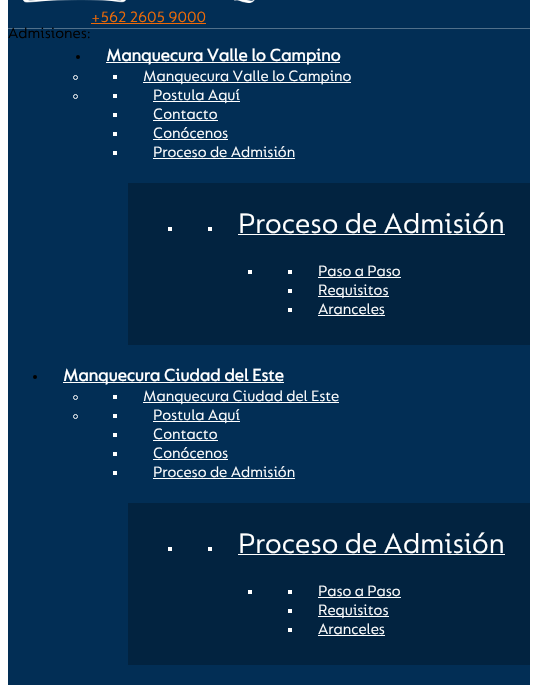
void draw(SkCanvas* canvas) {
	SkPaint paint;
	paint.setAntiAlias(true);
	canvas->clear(0xffffffff);
	paint.setColor(0xff022e55);
	canvas->drawRect(SkRect::MakeXYWH(8, 0, 522, 685), paint);
	paint.setColor(0xff51708a);
	canvas->drawRect(SkRect::MakeXYWH(8, 28, 522, 1), paint);
	canvas->drawImageRect(SkImages::DeferredFromEncodedData(SkData::MakeFromFileName("img1.png")), SkRect::MakeXYWH(23, 0, 232, 3), SkSamplingOptions());
	SkFont f1(fontMgr->matchFamilyStyle("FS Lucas", SkFontStyle::Normal()), 16);
	f1.setSubpixel(true);
	paint.setColor(0xffed6a08);
	canvas->drawString("+562 2605 9000", 91, 22, f1, paint);
	canvas->drawRect(SkRect::MakeXYWH(91, 23, 115, 1), paint);
	paint.setColor(0xff000000);
	canvas->drawString("Admisiones:", 8, 38, f1, paint);
	canvas->drawCircle(78, 57, 2, paint);
	paint.setColor(0xffffffff);
	canvas->drawRect(SkRect::MakeXYWH(106, 62, 234, 1), paint);
	SkFont f2(fontMgr->matchFamilyStyle("FS Lucas", SkFontStyle::Bold()), 18);
	f2.setSubpixel(true);
	canvas->drawString("Manquecura Valle lo Campino", 106, 61, f2, paint);
	paint.setStroke(true);
	paint.setStrokeWidth(1);
	canvas->drawCircle(75.5, 77.5, 2, paint);
	paint.setStroke(false);
	canvas->drawRect(SkRect::MakeXYWH(113, 75, 4, 4), paint);
	canvas->drawRect(SkRect::MakeXYWH(143, 82, 208, 1), paint);
	canvas->drawString("Manquecura Valle lo Campino", 143, 81, f1, paint);
	paint.setStroke(true);
	canvas->drawCircle(75.5, 96.5, 2, paint);
	paint.setStroke(false);
	canvas->drawRect(SkRect::MakeXYWH(113, 94, 4, 4), paint);
	canvas->drawRect(SkRect::MakeXYWH(153, 101, 87, 1), paint);
	canvas->drawString("Postula Aquí", 153, 100, f1, paint);
	canvas->drawRect(SkRect::MakeXYWH(113, 113, 4, 4), paint);
	canvas->drawString("Contacto", 153, 119, f1, paint);
	canvas->drawRect(SkRect::MakeXYWH(153, 120, 65, 1), paint);
	canvas->drawRect(SkRect::MakeXYWH(113, 132, 4, 4), paint);
	canvas->drawString("Conócenos", 153, 138, f1, paint);
	canvas->drawRect(SkRect::MakeXYWH(153, 139, 75, 1), paint);
	canvas->drawRect(SkRect::MakeXYWH(113, 151, 4, 4), paint);
	canvas->drawString("Proceso de Admisión", 153, 157, f1, paint);
	canvas->drawRect(SkRect::MakeXYWH(153, 158, 142, 1), paint);
	paint.setColor(0xff022340);
	canvas->drawRect(SkRect::MakeXYWH(128, 183, 402, 162), paint);
	paint.setColor(0xffffffff);
	canvas->drawRect(SkRect::MakeXYWH(168, 227, 4, 4), paint);
	canvas->drawRect(SkRect::MakeXYWH(208, 227, 4, 4), paint);
	SkFont f3(fontMgr->matchFamilyStyle("FS Lucas", SkFontStyle::Normal()), 30);
	f3.setSubpixel(true);
	canvas->drawString("Proceso de Admisión", 238, 233, f3, paint);
	canvas->drawRect(SkRect::MakeXYWH(238, 234, 267, 1), paint);
	canvas->drawRect(SkRect::MakeXYWH(248, 270, 4, 4), paint);
	canvas->drawRect(SkRect::MakeXYWH(288, 270, 4, 4), paint);
	canvas->drawString("Paso a Paso", 318, 276, f1, paint);
	canvas->drawRect(SkRect::MakeXYWH(318, 277, 83, 1), paint);
	canvas->drawRect(SkRect::MakeXYWH(288, 289, 4, 4), paint);
	canvas->drawRect(SkRect::MakeXYWH(318, 296, 71, 1), paint);
	canvas->drawString("Requisitos", 318, 295, f1, paint);
	canvas->drawRect(SkRect::MakeXYWH(288, 308, 4, 4), paint);
	canvas->drawString("Aranceles", 318, 314, f1, paint);
	canvas->drawRect(SkRect::MakeXYWH(318, 315, 67, 1), paint);
	paint.setColor(0xff000000);
	canvas->drawCircle(35, 377, 2, paint);
	paint.setColor(0xffffffff);
	canvas->drawRect(SkRect::MakeXYWH(63, 382, 221, 1), paint);
	canvas->drawString("Manquecura Ciudad del Este", 63, 381, f2, paint);
	paint.setStroke(true);
	canvas->drawCircle(75.5, 397.5, 2, paint);
	paint.setStroke(false);
	canvas->drawRect(SkRect::MakeXYWH(113, 395, 4, 4), paint);
	canvas->drawRect(SkRect::MakeXYWH(143, 402, 196, 1), paint);
	canvas->drawString("Manquecura Ciudad del Este", 143, 401, f1, paint);
	paint.setStroke(true);
	canvas->drawCircle(75.5, 416.5, 2, paint);
	paint.setStroke(false);
	canvas->drawRect(SkRect::MakeXYWH(113, 414, 4, 4), paint);
	canvas->drawRect(SkRect::MakeXYWH(153, 421, 87, 1), paint);
	canvas->drawString("Postula Aquí", 153, 420, f1, paint);
	canvas->drawRect(SkRect::MakeXYWH(113, 433, 4, 4), paint);
	canvas->drawString("Contacto", 153, 439, f1, paint);
	canvas->drawRect(SkRect::MakeXYWH(153, 440, 65, 1), paint);
	canvas->drawRect(SkRect::MakeXYWH(113, 452, 4, 4), paint);
	canvas->drawString("Conócenos", 153, 458, f1, paint);
	canvas->drawRect(SkRect::MakeXYWH(153, 459, 75, 1), paint);
	canvas->drawRect(SkRect::MakeXYWH(113, 471, 4, 4), paint);
	canvas->drawString("Proceso de Admisión", 153, 477, f1, paint);
	canvas->drawRect(SkRect::MakeXYWH(153, 478, 142, 1), paint);
	paint.setColor(0xff022340);
	canvas->drawRect(SkRect::MakeXYWH(128, 503, 402, 162), paint);
	paint.setColor(0xffffffff);
	canvas->drawRect(SkRect::MakeXYWH(168, 547, 4, 4), paint);
	canvas->drawRect(SkRect::MakeXYWH(208, 547, 4, 4), paint);
	canvas->drawString("Proceso de Admisión", 238, 553, f3, paint);
	canvas->drawRect(SkRect::MakeXYWH(238, 554, 267, 1), paint);
	canvas->drawRect(SkRect::MakeXYWH(248, 590, 4, 4), paint);
	canvas->drawRect(SkRect::MakeXYWH(288, 590, 4, 4), paint);
	canvas->drawString("Paso a Paso", 318, 596, f1, paint);
	canvas->drawRect(SkRect::MakeXYWH(318, 597, 83, 1), paint);
	canvas->drawRect(SkRect::MakeXYWH(288, 609, 4, 4), paint);
	canvas->drawRect(SkRect::MakeXYWH(318, 616, 71, 1), paint);
	canvas->drawString("Requisitos", 318, 615, f1, paint);
	canvas->drawRect(SkRect::MakeXYWH(288, 628, 4, 4), paint);
	canvas->drawString("Aranceles", 318, 634, f1, paint);
	canvas->drawRect(SkRect::MakeXYWH(318, 635, 67, 1), paint);
}
